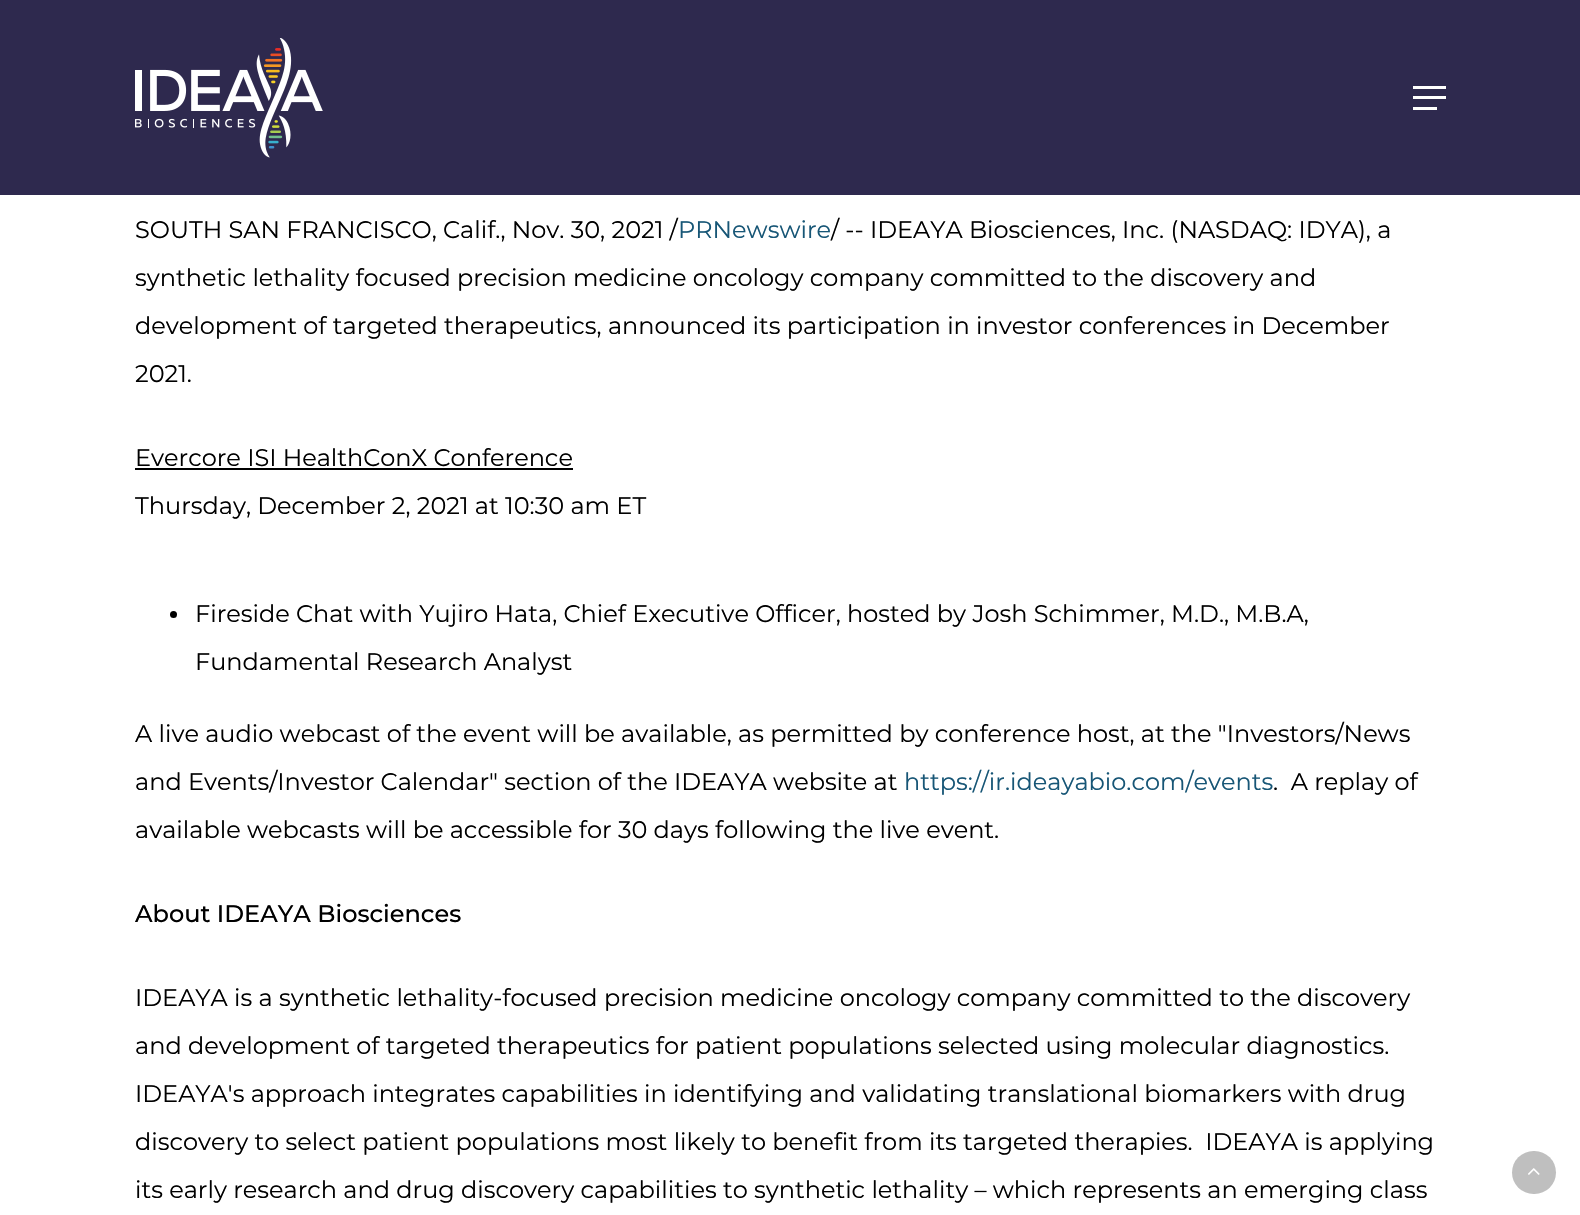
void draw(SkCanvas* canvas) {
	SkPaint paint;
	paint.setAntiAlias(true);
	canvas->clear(0xffffffff);
	paint.setColor(0xff2e294e);
	canvas->drawRect(SkRect::MakeXYWH(0, 0, 1580, 195), paint);
	canvas->drawImageRect(SkImages::DeferredFromEncodedData(SkData::MakeFromFileName("img1.png")), SkRect::MakeXYWH(135, 38, 188, 120), SkSamplingOptions());
	paint.setColor(0xffffffff);
	canvas->drawRect(SkRect::MakeXYWH(1413, 86, 33, 3), paint);
	canvas->drawRect(SkRect::MakeXYWH(1413, 107, 24, 3), paint);
	canvas->drawRect(SkRect::MakeXYWH(1413, 96, 33, 3), paint);
	SkFont f1(fontMgr->matchFamilyStyle("Montserrat", SkFontStyle::Normal()), 24);
	f1.setSubpixel(true);
	paint.setColor(0xff000000);
	canvas->drawString("SOUTH SAN FRANCISCO, Calif., Nov. 30, 2021 /", 135, 238, f1, paint);
	paint.setColor(0xff175676);
	canvas->drawString("PRNewswire", 678, 238, f1, paint);
	paint.setColor(0xff000000);
	canvas->drawString("/ -- IDEAYA Biosciences, Inc. (NASDAQ: IDYA), a", 831, 238, f1, paint);
	canvas->drawString("synthetic lethality focused precision medicine oncology company committed to the discovery and", 135, 286, f1, paint);
	canvas->drawString("development of targeted therapeutics, announced its participation in investor conferences in December", 135, 334, f1, paint);
	canvas->drawString("2021.", 135, 382, f1, paint);
	canvas->drawString("Evercore ISI HealthConX Conference", 135, 466, f1, paint);
	canvas->drawRect(SkRect::MakeXYWH(135, 468, 438, 2), paint);
	canvas->drawString("Thursday, December 2, 2021 at 10:30 am ET", 135, 514, f1, paint);
	canvas->drawCircle(173.5, 614.5, 3.5, paint);
	canvas->drawString("Fireside Chat with Yujiro Hata, Chief Executive Officer, hosted by Josh Schimmer, M.D., M.B.A,", 195, 622, f1, paint);
	canvas->drawString("Fundamental Research Analyst", 195, 670, f1, paint);
	canvas->drawString("A live audio webcast of the event will be available, as permitted by conference host, at the \"Investors/News", 135, 742, f1, paint);
	canvas->drawString("and Events/Investor Calendar\" section of the IDEAYA website at", 135, 790, f1, paint);
	paint.setColor(0xff175676);
	canvas->drawString("https://ir.ideayabio.com/events", 904, 790, f1, paint);
	paint.setColor(0xff000000);
	canvas->drawString(".  A replay of", 1273, 790, f1, paint);
	canvas->drawString("available webcasts will be accessible for 30 days following the live event.", 135, 838, f1, paint);
	SkFont f2(fontMgr->matchFamilyStyle("Montserrat", SkFontStyle(500, SkFontStyle::kNormal_Width, SkFontStyle::kUpright_Slant)), 24);
	f2.setSubpixel(true);
	canvas->drawString("About IDEAYA Biosciences", 135, 922, f2, paint);
	canvas->drawString("IDEAYA is a synthetic lethality-focused precision medicine oncology company committed to the discovery", 135, 1006, f1, paint);
	canvas->drawString("and development of targeted therapeutics for patient populations selected using molecular diagnostics.", 135, 1054, f1, paint);
	canvas->drawString("IDEAYA's approach integrates capabilities in identifying and validating translational biomarkers with drug", 135, 1102, f1, paint);
	canvas->drawString("discovery to select patient populations most likely to benefit from its targeted therapies.  IDEAYA is applying", 135, 1150, f1, paint);
	canvas->drawString("its early research and drug discovery capabilities to synthetic lethality – which represents an emerging class", 135, 1198, f1, paint);
	paint.setColor(0xffbfbfbf);
	canvas->drawRoundRect(SkRect::MakeXYWH(1512, 1151, 44, 43), 21.5, 21.5, paint);
	canvas->drawImageRect(SkImages::DeferredFromEncodedData(SkData::MakeFromFileName("img2.png")), SkRect::MakeXYWH(1528, 1168, 12, 7), SkSamplingOptions());
}
